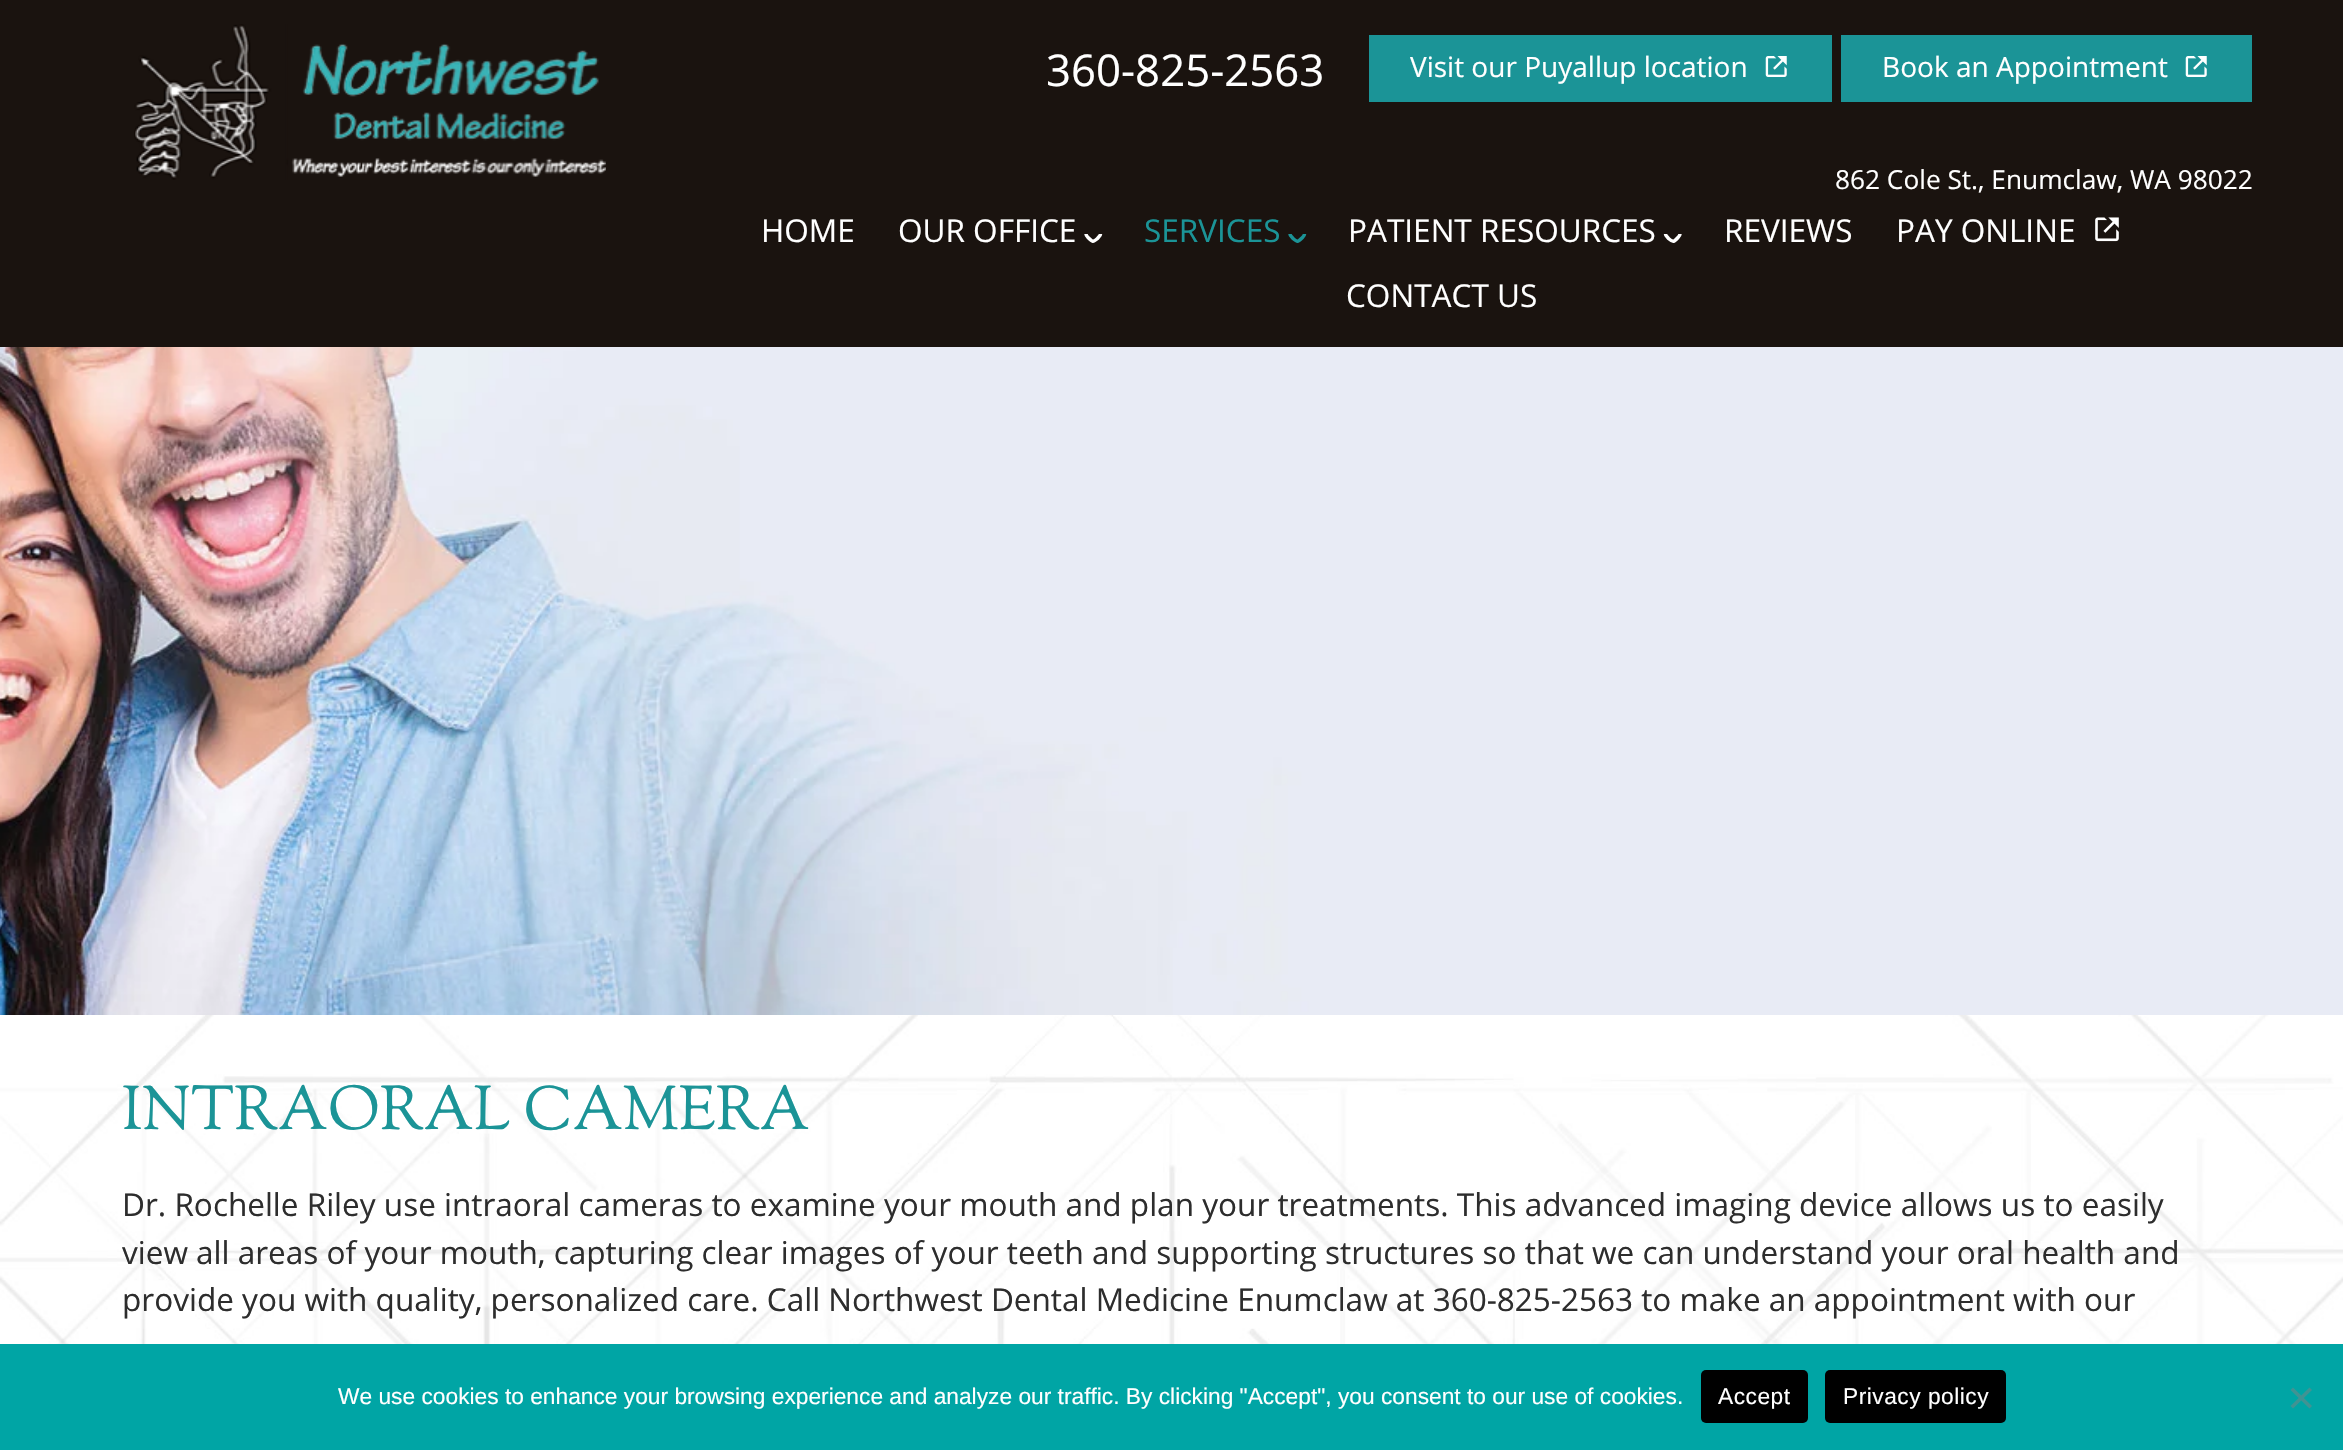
void draw(SkCanvas* canvas) {
	SkPaint paint;
	paint.setAntiAlias(true);
	auto spacedText = [&](const char* s, float x, float y, const SkFont& font, const SkPaint& ink, float letter, float word) {
		std::vector<SkGlyphID> glyphs(font.countText(s, strlen(s), SkTextEncoding::kUTF8));
		std::vector<float> xs(glyphs.size());
		font.textToGlyphs(s, strlen(s), SkTextEncoding::kUTF8, glyphs);
		font.getXPos(glyphs, xs, x);
		float extra = 0;
		for (size_t i = 0; i < glyphs.size(); i++) {
			xs[i] += extra;
			extra += letter + word * (glyphs[i] == font.unicharToGlyph(' '));
		}
		canvas->drawTextBlob(SkTextBlob::MakeFromPosHGlyphs(glyphs, xs, y, font), 0, 0, ink);
	};
	auto svgPath = [&](const char* data, bool evenOdd = false) {
		SkPath result = *SkParsePath::FromSVGString(data);
		if (evenOdd) result.setFillType(SkPathFillType::kEvenOdd);
		return result;
	};
	canvas->clear(0xffffffff);
	paint.setColor(0xff1a130f);
	canvas->drawRect(SkRect::MakeXYWH(0, 0, 2343, 347), paint);
	canvas->drawImageRect(SkImages::DeferredFromEncodedData(SkData::MakeFromFileName("img1.png")), SkRect::MakeXYWH(134, 24, 472, 156), SkSamplingOptions());
	SkFont f1(fontMgr->matchFamilyStyle("Open Sans", SkFontStyle::Normal()), 43.75);
	f1.setSubpixel(true);
	paint.setColor(0xffffffff);
	canvas->drawString("360-825-2563", 1046, 86, f1, paint);
	paint.setColor(0xff1b9497);
	canvas->drawRect(SkRect::MakeXYWH(1369, 35, 463, 67), paint);
	SkFont f2(fontMgr->matchFamilyStyle("Open Sans", SkFontStyle::Normal()), 28);
	f2.setSubpixel(true);
	paint.setColor(0xffffffff);
	canvas->drawString("Visit our Puyallup location", 1410, 77, f2, paint);
	canvas->drawImageRect(SkImages::DeferredFromEncodedData(SkData::MakeFromFileName("img2.png")), SkRect::MakeXYWH(1765, 56, 22, 21), SkSamplingOptions());
	paint.setColor(0xff1b9497);
	canvas->drawRect(SkRect::MakeXYWH(1841, 35, 411, 67), paint);
	paint.setColor(0xffffffff);
	canvas->drawString("Book an Appointment", 1882, 77, f2, paint);
	canvas->drawImageRect(SkImages::DeferredFromEncodedData(SkData::MakeFromFileName("img2.png")), SkRect::MakeXYWH(2185, 56, 22, 21), SkSamplingOptions());
	SkFont f3(fontMgr->matchFamilyStyle("Open Sans", SkFontStyle::Normal()), 26.25);
	f3.setSubpixel(true);
	canvas->drawString("862 Cole St., Enumclaw, WA 98022", 1835, 189, f3, paint);
	SkFont f4(fontMgr->matchFamilyStyle("Open Sans", SkFontStyle::Normal()), 31.5);
	f4.setSubpixel(true);
	canvas->drawString("HOME", 761, 242, f4, paint);
	canvas->drawString("OUR OFFICE", 898, 242, f4, paint);
	paint.setStroke(true);
	paint.setStrokeWidth(3.5);
	canvas->drawPath(svgPath("M1100.5 234C1100.5 236 1098.5 237 1097.5 238.5C1093 242.5 1092.5 242 1088 237.5C1087 236.5 1086 235.5 1086 234"), paint);
	paint.setStroke(false);
	paint.setColor(0xff1b9497);
	canvas->drawString("SERVICES", 1144, 242, f4, paint);
	paint.setStroke(true);
	canvas->drawPath(svgPath("M1304.5 234C1304.5 235.5 1303.5 236.5 1302.5 237.5C1298 242 1297.5 242.5 1293 238.5C1292 237 1290 236 1290 234"), paint);
	paint.setStroke(false);
	paint.setColor(0xffffffff);
	canvas->drawString("PATIENT RESOURCES", 1348, 242, f4, paint);
	paint.setStroke(true);
	canvas->drawPath(svgPath("M1680 234C1680 235.5 1679 236.5 1678 237.5C1674 242 1673 242.5 1668.5 238.5C1667.5 237 1665.5 236 1665.5 234"), paint);
	paint.setStroke(false);
	canvas->drawString("REVIEWS", 1724, 242, f4, paint);
	canvas->drawString("PAY ONLINE", 1896, 242, f4, paint);
	canvas->drawImageRect(SkImages::DeferredFromEncodedData(SkData::MakeFromFileName("img3.png")), SkRect::MakeXYWH(2095, 217, 24, 25), SkSamplingOptions());
	canvas->drawString("CONTACT US", 1346, 307, f4, paint);
	canvas->drawImageRect(SkImages::DeferredFromEncodedData(SkData::MakeFromFileName("img4.png")), SkRect::MakeXYWH(0, 347, 2343, 668), SkSamplingOptions());
	canvas->drawImageRect(SkImages::DeferredFromEncodedData(SkData::MakeFromFileName("img5.png")), SkRect::MakeXYWH(0, 1015, 2343, 329), SkSamplingOptions());
	SkFont f5(fontMgr->matchFamilyStyle("Sorts Mill Goudy", SkFontStyle::Normal()), 61.25);
	f5.setSubpixel(true);
	paint.setColor(0xff1b9497);
	canvas->drawString("INTRAORAL CAMERA", 122, 1129, f5, paint);
	paint.setColor(0xff2d2d2d);
	canvas->drawString("Dr. Rochelle Riley use intraoral cameras to examine your mouth and plan your treatments. This advanced imaging device allows us to easily", 122, 1216, f4, paint);
	canvas->drawString("view all areas of your mouth, capturing clear images of your teeth and supporting structures so that we can understand your oral health and", 122, 1264, f4, paint);
	canvas->drawString("provide you with quality, personalized care. Call Northwest Dental Medicine Enumclaw at 360-825-2563 to make an appointment with our", 122, 1311, f4, paint);
	paint.setColor(0xff00a5a5);
	canvas->drawRect(SkRect::MakeXYWH(0, 1344, 2343, 106), paint);
	SkFont f6(fontMgr->matchFamilyStyle("Liberation Sans", SkFontStyle::Normal()), 22.75);
	f6.setSubpixel(true);
	paint.setColor(0xffffffff);
	canvas->drawString("We use cookies to enhance your browsing experience and analyze our traffic. By clicking \"Accept\", you consent to our use of cookies.", 338, 1404, f6, paint);
	paint.setColor(0xff000000);
	canvas->drawRoundRect(SkRect::MakeXYWH(1701, 1370, 107, 53), 5, 5, paint);
	paint.setColor(0xffffffff);
	spacedText("Accept", 1718, 1404, f6, paint, 0.5, 0);
	paint.setColor(0xff000000);
	canvas->drawRoundRect(SkRect::MakeXYWH(1825, 1370, 181, 53), 5, 5, paint);
	paint.setColor(0xffffffff);
	spacedText("Privacy policy", 1843, 1404, f6, paint, 0.5, 0);
	paint.setColor(0xff409393);
	canvas->drawPath(svgPath("M2309.5 1387.5L2312 1390L2293 1408.5L2290.5 1406Z"), paint);
	canvas->drawPath(svgPath("M2290.5 1390L2293 1387.5L2312 1406L2309.5 1408.5Z"), paint);
}
